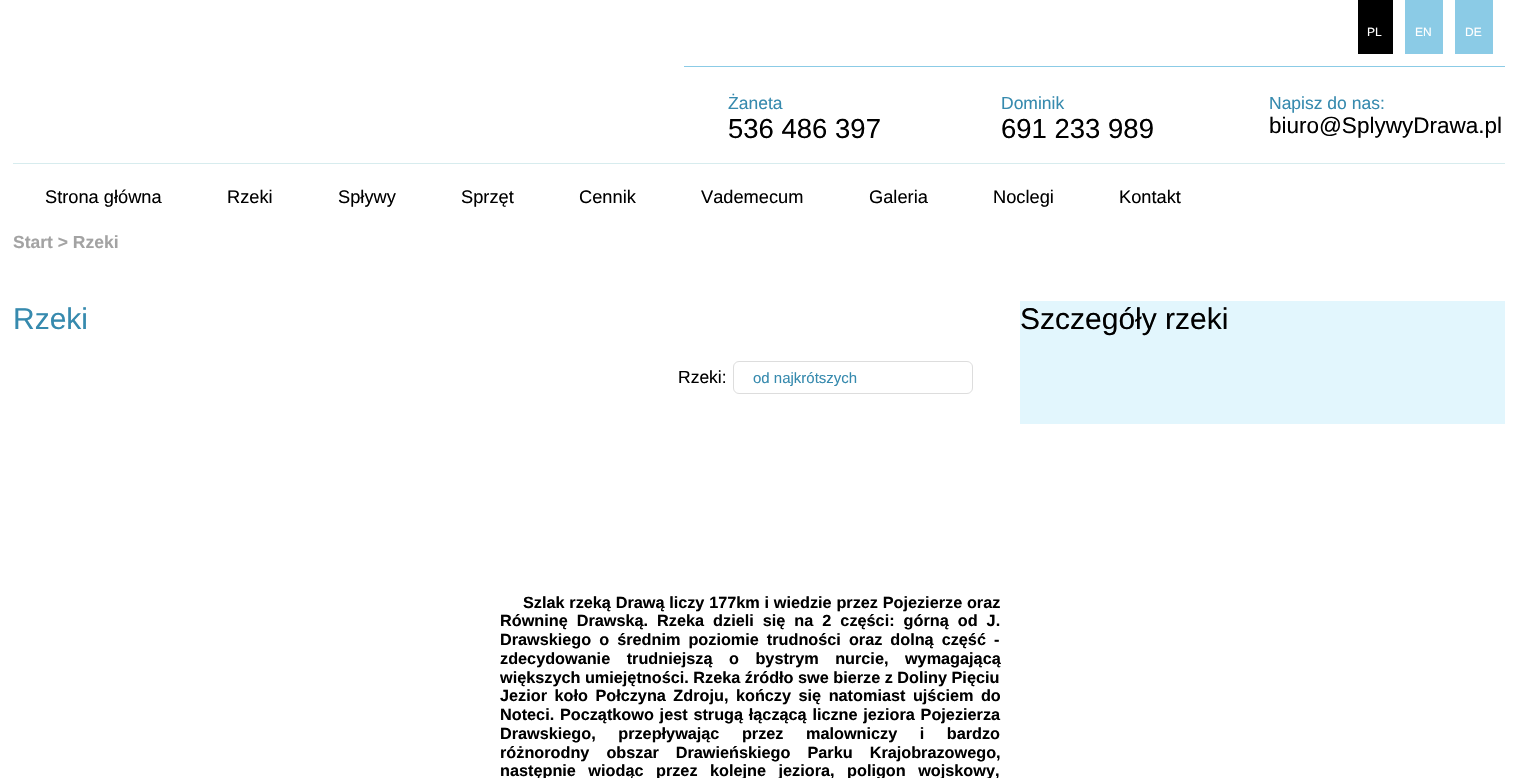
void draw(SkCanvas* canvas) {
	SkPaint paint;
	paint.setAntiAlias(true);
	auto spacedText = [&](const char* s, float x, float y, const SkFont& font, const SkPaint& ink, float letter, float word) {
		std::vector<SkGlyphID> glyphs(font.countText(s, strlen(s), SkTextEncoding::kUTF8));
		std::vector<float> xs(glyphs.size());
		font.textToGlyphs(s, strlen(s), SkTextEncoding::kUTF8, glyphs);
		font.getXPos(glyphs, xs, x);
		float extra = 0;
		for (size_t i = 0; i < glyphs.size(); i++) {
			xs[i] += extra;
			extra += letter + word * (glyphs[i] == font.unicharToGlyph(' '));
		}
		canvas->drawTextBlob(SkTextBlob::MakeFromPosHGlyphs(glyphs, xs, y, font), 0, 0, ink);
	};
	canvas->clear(0xffffffff);
	paint.setColor(0xff8bcbe6);
	canvas->drawRect(SkRect::MakeXYWH(684, 66, 821, 1), paint);
	paint.setColor(0xff000000);
	canvas->drawRect(SkRect::MakeXYWH(1358, 0, 35, 54), paint);
	SkFont f1(fontMgr->matchFamilyStyle("Liberation Sans", SkFontStyle::Normal()), 12);
	f1.setSubpixel(true);
	paint.setColor(0xffffffff);
	canvas->drawString("PL", 1367, 36, f1, paint);
	paint.setColor(0xff8bcbe6);
	canvas->drawRect(SkRect::MakeXYWH(1405, 0, 38, 54), paint);
	paint.setColor(0xffffffff);
	canvas->drawString("EN", 1415, 36, f1, paint);
	paint.setColor(0xff8bcbe6);
	canvas->drawRect(SkRect::MakeXYWH(1455, 0, 38, 54), paint);
	paint.setColor(0xffffffff);
	canvas->drawString("DE", 1465, 36, f1, paint);
	SkFont f2(fontMgr->matchFamilyStyle("Liberation Sans", SkFontStyle::Normal()), 17.5);
	f2.setSubpixel(true);
	paint.setColor(0xff368aae);
	canvas->drawString("Żaneta", 728, 109, f2, paint);
	SkFont f3(fontMgr->matchFamilyStyle("Liberation Sans", SkFontStyle::Normal()), 27.5);
	f3.setSubpixel(true);
	paint.setColor(0xff000000);
	canvas->drawString("536 486 397", 728, 138, f3, paint);
	paint.setColor(0xff368aae);
	canvas->drawString("Dominik", 1001, 109, f2, paint);
	paint.setColor(0xff000000);
	canvas->drawString("691 233 989", 1001, 138, f3, paint);
	paint.setColor(0xff368aae);
	canvas->drawString("Napisz do nas:", 1269, 109, f2, paint);
	SkFont f4(fontMgr->matchFamilyStyle("Liberation Sans", SkFontStyle::Normal()), 22.5);
	f4.setSubpixel(true);
	paint.setColor(0xff000000);
	canvas->drawString("biuro@SplywyDrawa.pl", 1269, 133, f4, paint);
	paint.setColor(0xffd7ecee);
	canvas->drawRect(SkRect::MakeXYWH(13, 163, 1492, 1), paint);
	SkFont f5(fontMgr->matchFamilyStyle("Liberation Sans", SkFontStyle::Normal()), 18.25);
	f5.setSubpixel(true);
	paint.setColor(0xff000000);
	canvas->drawString("Strona główna", 45, 203, f5, paint);
	canvas->drawString("Rzeki", 227, 203, f5, paint);
	canvas->drawString("Spływy", 338, 203, f5, paint);
	canvas->drawString("Sprzęt", 461, 203, f5, paint);
	canvas->drawString("Cennik", 579, 203, f5, paint);
	canvas->drawString("Vademecum", 701, 203, f5, paint);
	canvas->drawString("Galeria", 869, 203, f5, paint);
	canvas->drawString("Noclegi", 993, 203, f5, paint);
	canvas->drawString("Kontakt", 1119, 203, f5, paint);
	SkFont f6(fontMgr->matchFamilyStyle("Liberation Sans", SkFontStyle::Bold()), 17.5);
	f6.setSubpixel(true);
	paint.setColor(0xffa3a3a3);
	canvas->drawString("Start > Rzeki", 13, 248, f6, paint);
	SkFont f7(fontMgr->matchFamilyStyle("Liberation Sans", SkFontStyle::Normal()), 30);
	f7.setSubpixel(true);
	paint.setColor(0xff368aae);
	canvas->drawString("Rzeki", 13, 329, f7, paint);
	paint.setColor(0xffe2f6fd);
	canvas->drawRect(SkRect::MakeXYWH(1020, 301, 485, 123), paint);
	paint.setColor(0xff000000);
	canvas->drawString("Szczegóły rzeki", 1020, 329, f7, paint);
	canvas->drawString("Rzeki:", 678, 383, f2, paint);
	paint.setStroke(true);
	paint.setStrokeWidth(1);
	paint.setColor(0xffdddddd);
	canvas->drawRoundRect(SkRect::MakeXYWH(733.5, 361.5, 239, 32), 5.5, 5.5, paint);
	SkFont f8(fontMgr->matchFamilyStyle("Liberation Sans", SkFontStyle::Normal()), 15);
	f8.setSubpixel(true);
	paint.setStroke(false);
	paint.setColor(0xff368aae);
	canvas->drawString("od najkrótszych", 753, 383, f8, paint);
	SkFont f9(fontMgr->matchFamilyStyle("Liberation Sans", SkFontStyle::Bold()), 16.25);
	f9.setSubpixel(true);
	paint.setColor(0xff000000);
	spacedText("Szlak rzeką Drawą liczy 177km i wiedzie przez Pojezierze oraz", 523, 608, f9, paint, 0, 0.25);
	spacedText("Równinę Drawską. Rzeka dzieli się na 2 części: górną od J.", 500, 626, f9, paint, 0, 4.5);
	spacedText("Drawskiego o średnim poziomie trudności oraz dolną część -", 500, 645, f9, paint, 0, 3.5);
	spacedText("zdecydowanie trudniejszą o bystrym nurcie, wymagającą", 500, 664, f9, paint, 0, 12);
	canvas->drawString("większych umiejętności. Rzeka źródło swe bierze z Doliny Pięciu", 500, 683, f9, paint);
	spacedText("Jezior koło Połczyna Zdroju, kończy się natomiast ujściem do", 500, 701, f9, paint, 0, 3);
	spacedText("Noteci. Początkowo jest strugą łączącą liczne jeziora Pojezierza", 500, 720, f9, paint, 0, 1.25);
	spacedText("Drawskiego, przepływając przez malowniczy i bardzo", 500, 739, f9, paint, 0, 18);
	spacedText("różnorodny obszar Drawieńskiego Parku Krajobrazowego,", 500, 758, f9, paint, 0, 12.5);
	spacedText("następnie wiodąc przez kolejne jeziora, poligon wojskowy,", 500, 776, f9, paint, 0, 8);
}
